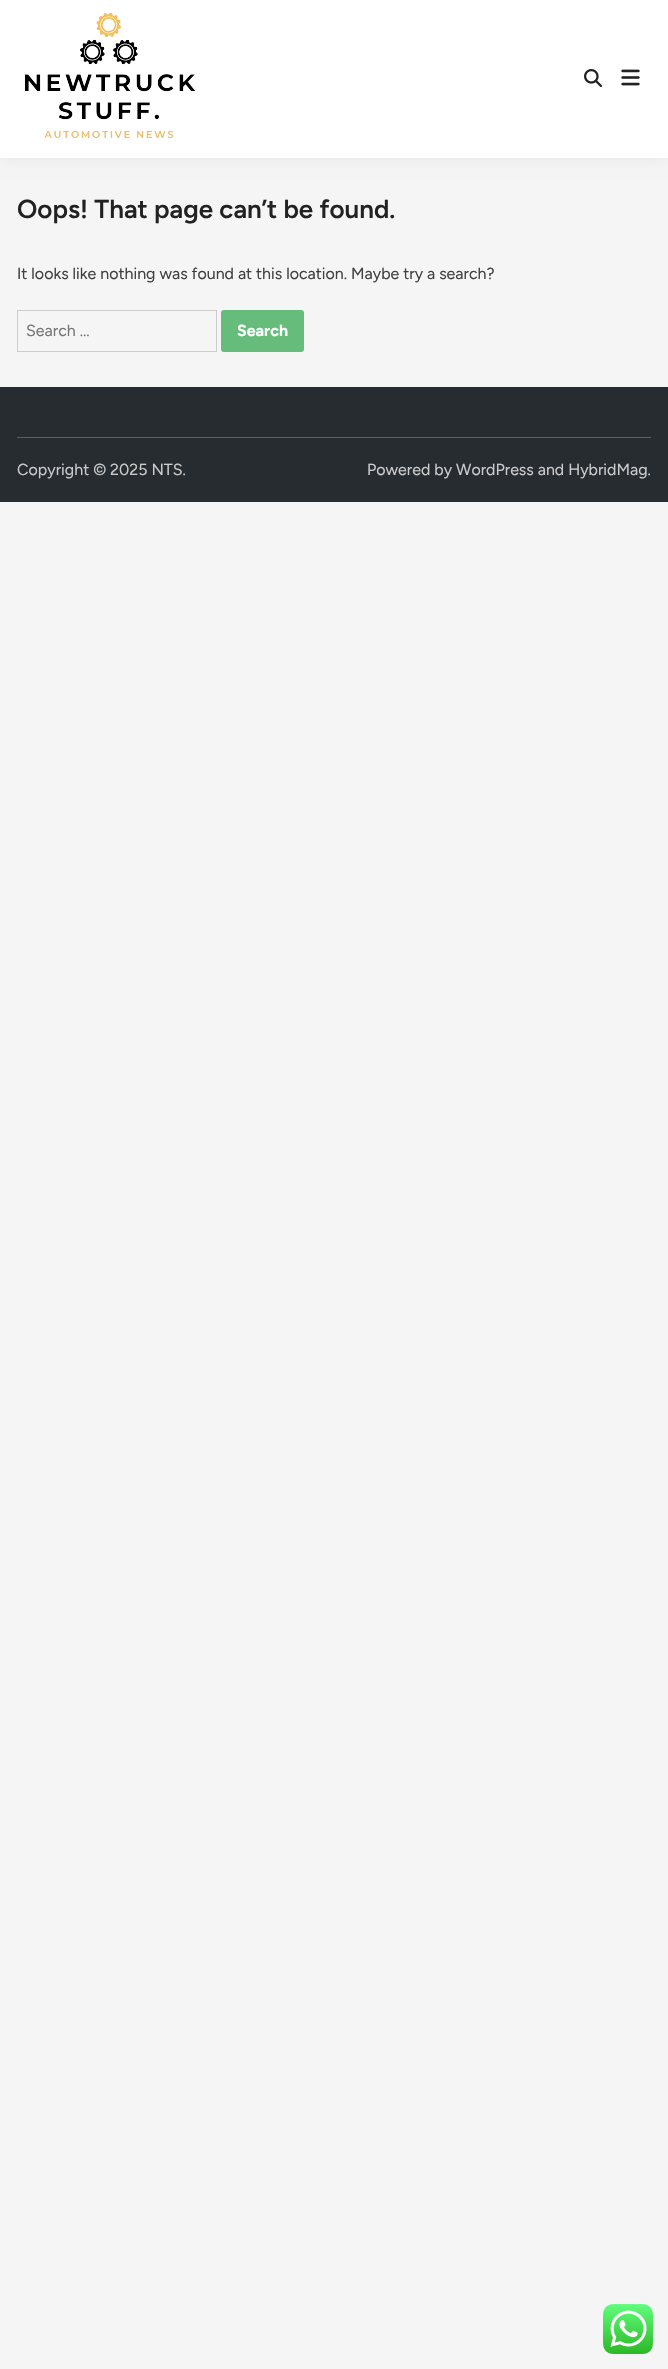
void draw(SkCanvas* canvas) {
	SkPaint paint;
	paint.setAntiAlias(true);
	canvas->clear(0xfff5f5f5);
	paint.setColor(0x0f000000);
	paint.setMaskFilter(SkMaskFilter::MakeBlur(kNormal_SkBlurStyle, 7.5));
	canvas->drawRect(SkRect::MakeXYWH(0, 0, 668, 158), paint);
	paint.setMaskFilter(nullptr);
	paint.setColor(0xffffffff);
	canvas->drawRect(SkRect::MakeXYWH(0, 0, 668, 158), paint);
	canvas->drawImageRect(SkImages::DeferredFromEncodedData(SkData::MakeFromFileName("img1.png")), SkRect::MakeXYWH(25, 12, 170, 127), SkSamplingOptions());
	canvas->drawImageRect(SkImages::DeferredFromEncodedData(SkData::MakeFromFileName("img2.png")), SkRect::MakeXYWH(584, 69, 18, 18), SkSamplingOptions());
	canvas->drawImageRect(SkImages::DeferredFromEncodedData(SkData::MakeFromFileName("img3.png")), SkRect::MakeXYWH(621, 69, 19, 17), SkSamplingOptions());
	SkFont f1(fontMgr->matchFamilyStyle("Figtree", SkFontStyle(600, SkFontStyle::kNormal_Width, SkFontStyle::kUpright_Slant)), 26);
	f1.setSubpixel(true);
	paint.setColor(0xff222222);
	canvas->drawString("Oops! That page can’t be found.", 17, 218, f1, paint);
	SkFont f2(fontMgr->matchFamilyStyle("Figtree", SkFontStyle::Normal()), 16);
	f2.setSubpixel(true);
	paint.setColor(0xff404040);
	canvas->drawString("It looks like nothing was found at this location. Maybe try a search?", 17, 279, f2, paint);
	paint.setStroke(true);
	paint.setStrokeWidth(1);
	paint.setColor(0xffcccccc);
	canvas->drawRect(SkRect::MakeXYWH(17.5, 310.5, 199, 41), paint);
	paint.setStroke(false);
	paint.setColor(0xff757575);
	canvas->drawString("Search …", 26, 336, f2, paint);
	paint.setColor(0xff65bc7b);
	canvas->drawRoundRect(SkRect::MakeXYWH(221, 310, 83, 42), 3, 3, paint);
	SkFont f3(fontMgr->matchFamilyStyle("Figtree", SkFontStyle::Bold()), 16);
	f3.setSubpixel(true);
	paint.setColor(0xffffffff);
	canvas->drawString("Search", 237, 336, f3, paint);
	paint.setColor(0xff272c30);
	canvas->drawRect(SkRect::MakeXYWH(0, 387, 668, 115), paint);
	paint.setColor(0xff595f64);
	canvas->drawRect(SkRect::MakeXYWH(17, 437, 634, 1), paint);
	paint.setColor(0xffcccccc);
	canvas->drawString("Copyright © 2025 NTS.", 17, 475, f2, paint);
	canvas->drawString("Powered by WordPress and HybridMag.", 367, 475, f2, paint);
	canvas->drawImageRect(SkImages::DeferredFromEncodedData(SkData::MakeFromFileName("img4.png")), SkRect::MakeXYWH(603, 2304, 50, 50), SkSamplingOptions());
}
